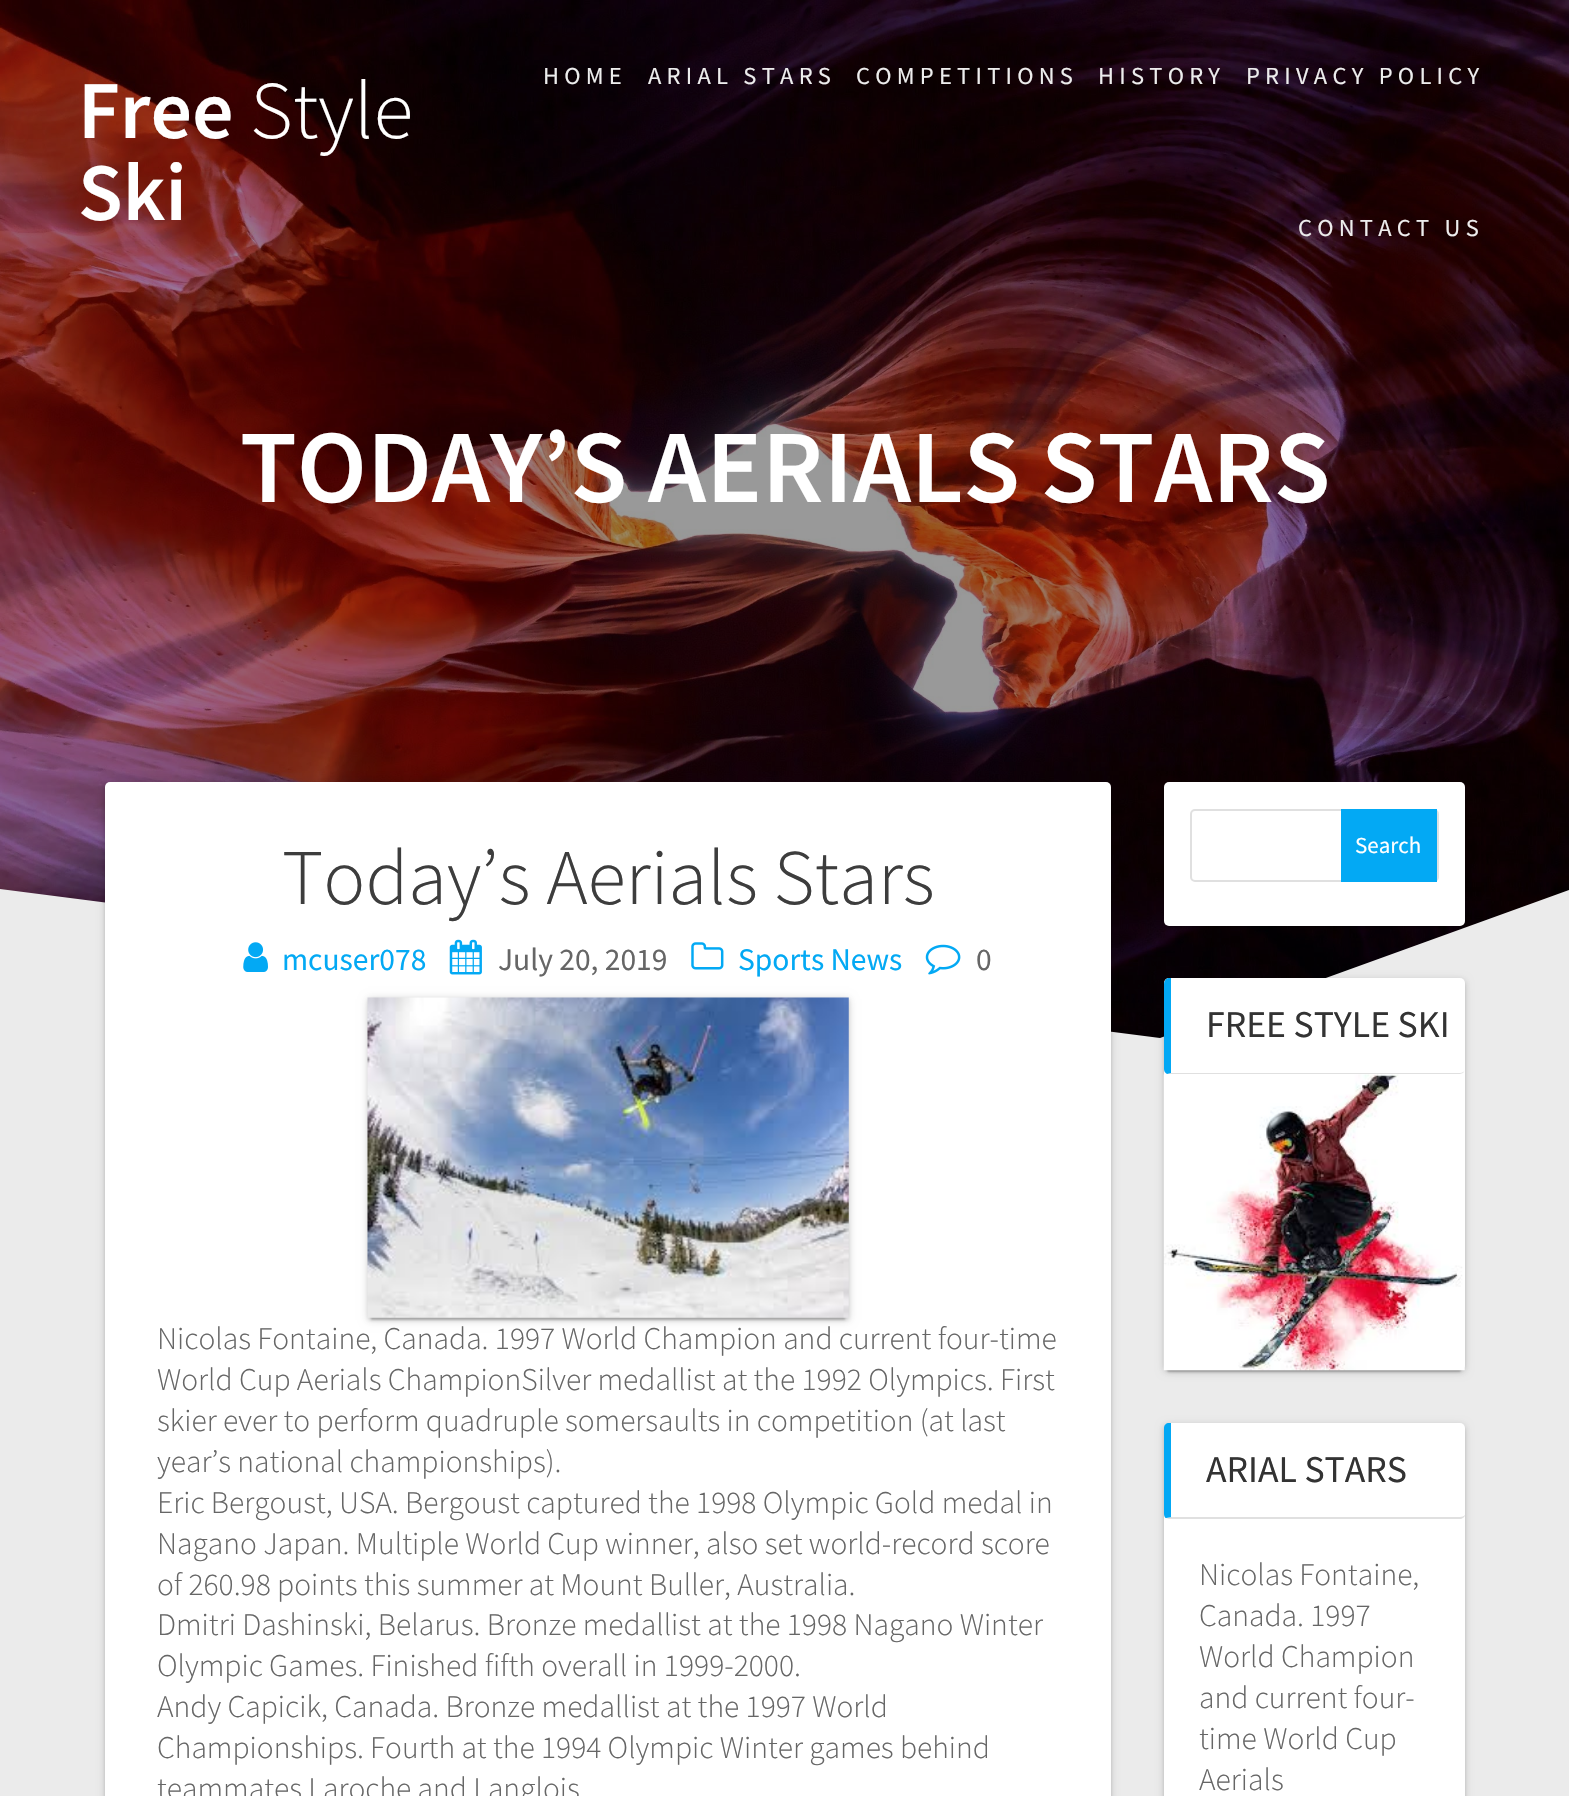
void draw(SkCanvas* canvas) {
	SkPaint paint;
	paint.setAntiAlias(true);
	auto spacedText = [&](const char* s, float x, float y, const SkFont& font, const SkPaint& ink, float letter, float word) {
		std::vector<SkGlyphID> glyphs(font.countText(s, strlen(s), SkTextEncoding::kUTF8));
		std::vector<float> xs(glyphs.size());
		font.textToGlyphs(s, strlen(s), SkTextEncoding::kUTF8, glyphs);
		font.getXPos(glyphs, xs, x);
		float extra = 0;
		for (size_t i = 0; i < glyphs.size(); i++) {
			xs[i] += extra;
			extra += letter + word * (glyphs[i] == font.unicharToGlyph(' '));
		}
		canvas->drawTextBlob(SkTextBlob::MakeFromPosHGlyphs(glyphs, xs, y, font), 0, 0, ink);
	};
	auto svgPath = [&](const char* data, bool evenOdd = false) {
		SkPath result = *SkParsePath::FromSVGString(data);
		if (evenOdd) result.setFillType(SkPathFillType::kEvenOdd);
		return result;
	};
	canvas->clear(0xffffffff);
	canvas->drawImageRect(SkImages::DeferredFromEncodedData(SkData::MakeFromFileName("img1.png")), SkRect::MakeXYWH(0, 0, 1569, 1038), SkSamplingOptions());
	paint.setColor(0x66000000);
	canvas->drawRect(SkRect::MakeXYWH(0, 0, 1569, 1038), paint);
	SkFont f1(fontMgr->matchFamilyStyle("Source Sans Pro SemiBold", SkFontStyle(600, SkFontStyle::kNormal_Width, SkFontStyle::kUpright_Slant)), 82);
	f1.setSubpixel(true);
	paint.setColor(0xffffffff);
	canvas->drawString("Free", 78, 138, f1, paint);
	SkFont f2(fontMgr->matchFamilyStyle("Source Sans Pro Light", SkFontStyle(300, SkFontStyle::kNormal_Width, SkFontStyle::kUpright_Slant)), 82);
	f2.setSubpixel(true);
	canvas->drawString("Style", 250, 138, f2, paint);
	canvas->drawString("Ski", 78, 220, f1, paint);
	SkFont f3(fontMgr->matchFamilyStyle("Source Sans Pro", SkFontStyle::Normal()), 24.5);
	f3.setSubpixel(true);
	paint.setColor(0xffededed);
	spacedText("HOME", 543, 84, f3, paint, 5.25, 0);
	spacedText("ARIAL STARS", 648, 84, f3, paint, 5.25, 0);
	spacedText("COMPETITIONS", 856, 84, f3, paint, 5.25, 0);
	spacedText("HISTORY", 1098, 84, f3, paint, 5.25, 0);
	spacedText("PRIVACY POLICY", 1246, 84, f3, paint, 5.25, 0);
	spacedText("CONTACT US", 1298, 236, f3, paint, 5.25, 0);
	SkFont f4(fontMgr->matchFamilyStyle("Source Sans Pro SemiBold", SkFontStyle(600, SkFontStyle::kNormal_Width, SkFontStyle::kUpright_Slant)), 104);
	f4.setSubpixel(true);
	paint.setColor(0xffffffff);
	canvas->drawString("TODAY’S AERIALS STARS", 240, 502, f4, paint);
	paint.setColor(0xffebebeb);
	canvas->drawPath(svgPath("M1160 1038L0 889V1046H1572V889Z"), paint);
	canvas->drawRect(SkRect::MakeXYWH(0, 1046, 1569, 750), paint);
	paint.setColor(0x1f000000);
	paint.setMaskFilter(SkMaskFilter::MakeBlur(kNormal_SkBlurStyle, 4.5));
	canvas->drawRoundRect(SkRect::MakeXYWH(105, 784, 1006, 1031), 5, 5, paint);
	paint.setMaskFilter(nullptr);
	paint.setColor(0x24000000);
	paint.setMaskFilter(SkMaskFilter::MakeBlur(kNormal_SkBlurStyle, 2));
	canvas->drawRoundRect(SkRect::MakeXYWH(105, 784, 1006, 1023), 5, 5, paint);
	paint.setMaskFilter(nullptr);
	paint.setColor(0xffffffff);
	canvas->drawRoundRect(SkRect::MakeXYWH(105, 782, 1006, 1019), 5, 5, paint);
	SkFont f5(fontMgr->matchFamilyStyle("Source Sans Pro Light", SkFontStyle(300, SkFontStyle::kNormal_Width, SkFontStyle::kUpright_Slant)), 78.75);
	f5.setSubpixel(true);
	paint.setColor(0xff3d3d3d);
	canvas->drawString("Today’s Aerials Stars", 282, 904, f5, paint);
	canvas->drawImageRect(SkImages::DeferredFromEncodedData(SkData::MakeFromFileName("img2.png")), SkRect::MakeXYWH(243, 942, 25, 30), SkSamplingOptions());
	SkFont f6(fontMgr->matchFamilyStyle("Source Sans Pro", SkFontStyle::Normal()), 31.5);
	f6.setSubpixel(true);
	paint.setColor(0xff03a9f4);
	canvas->drawString("mcuser078", 282, 970, f6, paint);
	canvas->drawImageRect(SkImages::DeferredFromEncodedData(SkData::MakeFromFileName("img3.png")), SkRect::MakeXYWH(449, 939, 33, 36), SkSamplingOptions());
	paint.setColor(0xff666666);
	canvas->drawString("July 20, 2019", 498, 970, f6, paint);
	canvas->drawImageRect(SkImages::DeferredFromEncodedData(SkData::MakeFromFileName("img4.png")), SkRect::MakeXYWH(691, 942, 33, 28), SkSamplingOptions());
	paint.setColor(0xff03a9f4);
	canvas->drawString("Sports News", 738, 970, f6, paint);
	canvas->drawImageRect(SkImages::DeferredFromEncodedData(SkData::MakeFromFileName("img5.png")), SkRect::MakeXYWH(925, 944, 36, 31), SkSamplingOptions());
	paint.setColor(0xff666666);
	canvas->drawString("0", 976, 970, f6, paint);
	paint.setColor(0x1f000000);
	paint.setMaskFilter(SkMaskFilter::MakeBlur(kNormal_SkBlurStyle, 4.5));
	canvas->drawRect(SkRect::MakeXYWH(368, 999, 481, 321), paint);
	paint.setMaskFilter(nullptr);
	paint.setColor(0x33000000);
	paint.setMaskFilter(SkMaskFilter::MakeBlur(kNormal_SkBlurStyle, 1));
	canvas->drawRect(SkRect::MakeXYWH(371, 1006, 474, 314), paint);
	paint.setMaskFilter(nullptr);
	paint.setColor(0x24000000);
	paint.setMaskFilter(SkMaskFilter::MakeBlur(kNormal_SkBlurStyle, 2));
	canvas->drawRect(SkRect::MakeXYWH(368, 999, 481, 321), paint);
	paint.setMaskFilter(nullptr);
	canvas->drawImageRect(SkImages::DeferredFromEncodedData(SkData::MakeFromFileName("img6.png")), SkRect::MakeXYWH(367, 997, 482, 321), SkSamplingOptions());
	SkFont f7(fontMgr->matchFamilyStyle("Source Sans Pro Light", SkFontStyle(300, SkFontStyle::kNormal_Width, SkFontStyle::kUpright_Slant)), 31.5);
	f7.setSubpixel(true);
	paint.setColor(0xff666666);
	canvas->drawString("Nicolas Fontaine, Canada. 1997 World Champion and current four-time", 157, 1349, f7, paint);
	canvas->drawString("World Cup Aerials ChampionSilver medallist at the 1992 Olympics. First", 157, 1390, f7, paint);
	canvas->drawString("skier ever to perform quadruple somersaults in competition (at last", 157, 1431, f7, paint);
	canvas->drawString("year’s national championships).", 157, 1472, f7, paint);
	canvas->drawString("Eric Bergoust, USA. Bergoust captured the 1998 Olympic Gold medal in", 157, 1513, f7, paint);
	canvas->drawString("Nagano Japan. Multiple World Cup winner, also set world-record score", 157, 1554, f7, paint);
	canvas->drawString("of 260.98 points this summer at Mount Buller, Australia.", 157, 1595, f7, paint);
	canvas->drawString("Dmitri Dashinski, Belarus. Bronze medallist at the 1998 Nagano Winter", 157, 1635, f7, paint);
	canvas->drawString("Olympic Games. Finished fifth overall in 1999-2000.", 157, 1676, f7, paint);
	canvas->drawString("Andy Capicik, Canada. Bronze medallist at the 1997 World", 157, 1717, f7, paint);
	canvas->drawString("Championships. Fourth at the 1994 Olympic Winter games behind", 157, 1758, f7, paint);
	canvas->drawString("teammates Laroche and Langlois", 157, 1799, f7, paint);
	paint.setColor(0x33000000);
	paint.setMaskFilter(SkMaskFilter::MakeBlur(kNormal_SkBlurStyle, 1));
	canvas->drawRoundRect(SkRect::MakeXYWH(1167, 791, 294, 137), 2, 2, paint);
	paint.setMaskFilter(nullptr);
	paint.setColor(0xffffffff);
	canvas->drawRoundRect(SkRect::MakeXYWH(1164, 782, 301, 144), 5, 5, paint);
	paint.setStroke(true);
	paint.setStrokeWidth(2);
	paint.setColor(0xffe0e0e0);
	canvas->drawRoundRect(SkRect::MakeXYWH(1191, 810, 247, 71), 4, 4, paint);
	paint.setStroke(false);
	paint.setColor(0xff03a9f4);
	canvas->drawRect(SkRect::MakeXYWH(1341, 809, 96, 73), paint);
	SkFont f8(fontMgr->matchFamilyStyle("Source Sans Pro", SkFontStyle::Normal()), 23);
	f8.setSubpixel(true);
	paint.setColor(0xffffffff);
	canvas->drawString("Search", 1355, 853, f8, paint);
	paint.setColor(0x1f000000);
	paint.setMaskFilter(SkMaskFilter::MakeBlur(kNormal_SkBlurStyle, 4.5));
	canvas->drawRoundRect(SkRect::MakeXYWH(1164, 980, 301, 392), 5, 5, paint);
	paint.setMaskFilter(nullptr);
	paint.setColor(0x33000000);
	paint.setMaskFilter(SkMaskFilter::MakeBlur(kNormal_SkBlurStyle, 1));
	canvas->drawRoundRect(SkRect::MakeXYWH(1167, 987, 294, 385), 2, 2, paint);
	paint.setMaskFilter(nullptr);
	paint.setColor(0x24000000);
	paint.setMaskFilter(SkMaskFilter::MakeBlur(kNormal_SkBlurStyle, 2));
	canvas->drawRoundRect(SkRect::MakeXYWH(1164, 980, 301, 392), 5, 5, paint);
	paint.setMaskFilter(nullptr);
	paint.setColor(0xffffffff);
	canvas->drawRoundRect(SkRect::MakeXYWH(1164, 978, 301, 392), 5, 5, paint);
	paint.setColor(0xffe0e0e0);
	canvas->drawPath(svgPath("M1465 1070L1463 1073L1460 1074H1167L1171 1073H1460C1462 1073 1464 1072 1465 1070Z"), paint);
	paint.setColor(0xff03a8f4);
	canvas->drawPath(svgPath("M1167 1074C1165 1073 1164 1071 1164 1069V984C1164 982 1165 979 1168 978H1171V1073Z"), paint);
	SkFont f9(fontMgr->matchFamilyStyle("Source Sans Pro", SkFontStyle::Normal()), 37.75);
	f9.setSubpixel(true);
	paint.setColor(0xff333333);
	canvas->drawString("FREE STYLE SKI", 1206, 1037, f9, paint);
	canvas->drawImageRect(SkImages::DeferredFromEncodedData(SkData::MakeFromFileName("img7.png")), SkRect::MakeXYWH(1163, 1074, 302, 297), SkSamplingOptions());
	paint.setColor(0x1f000000);
	paint.setMaskFilter(SkMaskFilter::MakeBlur(kNormal_SkBlurStyle, 4.5));
	canvas->drawRoundRect(SkRect::MakeXYWH(1164, 1425, 301, 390), 5, 5, paint);
	paint.setMaskFilter(nullptr);
	paint.setColor(0x24000000);
	paint.setMaskFilter(SkMaskFilter::MakeBlur(kNormal_SkBlurStyle, 2));
	canvas->drawRoundRect(SkRect::MakeXYWH(1164, 1425, 301, 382), 5, 5, paint);
	paint.setMaskFilter(nullptr);
	paint.setColor(0xffffffff);
	canvas->drawRoundRect(SkRect::MakeXYWH(1164, 1423, 301, 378), 5, 5, paint);
	paint.setColor(0xffe0e0e0);
	canvas->drawPath(svgPath("M1169 1519H1460C1462 1519 1465 1517 1465 1515C1464 1516 1462 1517 1460 1517H1172L1166 1518Z"), paint);
	paint.setColor(0xff03a8f4);
	canvas->drawPath(svgPath("M1169 1423H1171V1517H1172L1166 1518C1165 1518 1164 1516 1164 1514V1428C1164 1425 1166 1423 1169 1423Z"), paint);
	paint.setColor(0xff333333);
	canvas->drawString("ARIAL STARS", 1206, 1482, f9, paint);
	paint.setColor(0xff666666);
	canvas->drawString("Nicolas Fontaine,", 1199, 1585, f7, paint);
	canvas->drawString("Canada. 1997", 1199, 1626, f7, paint);
	canvas->drawString("World Champion", 1199, 1667, f7, paint);
	canvas->drawString("and current four-", 1199, 1708, f7, paint);
	canvas->drawString("time World Cup", 1199, 1749, f7, paint);
	canvas->drawString("Aerials", 1199, 1790, f7, paint);
}
